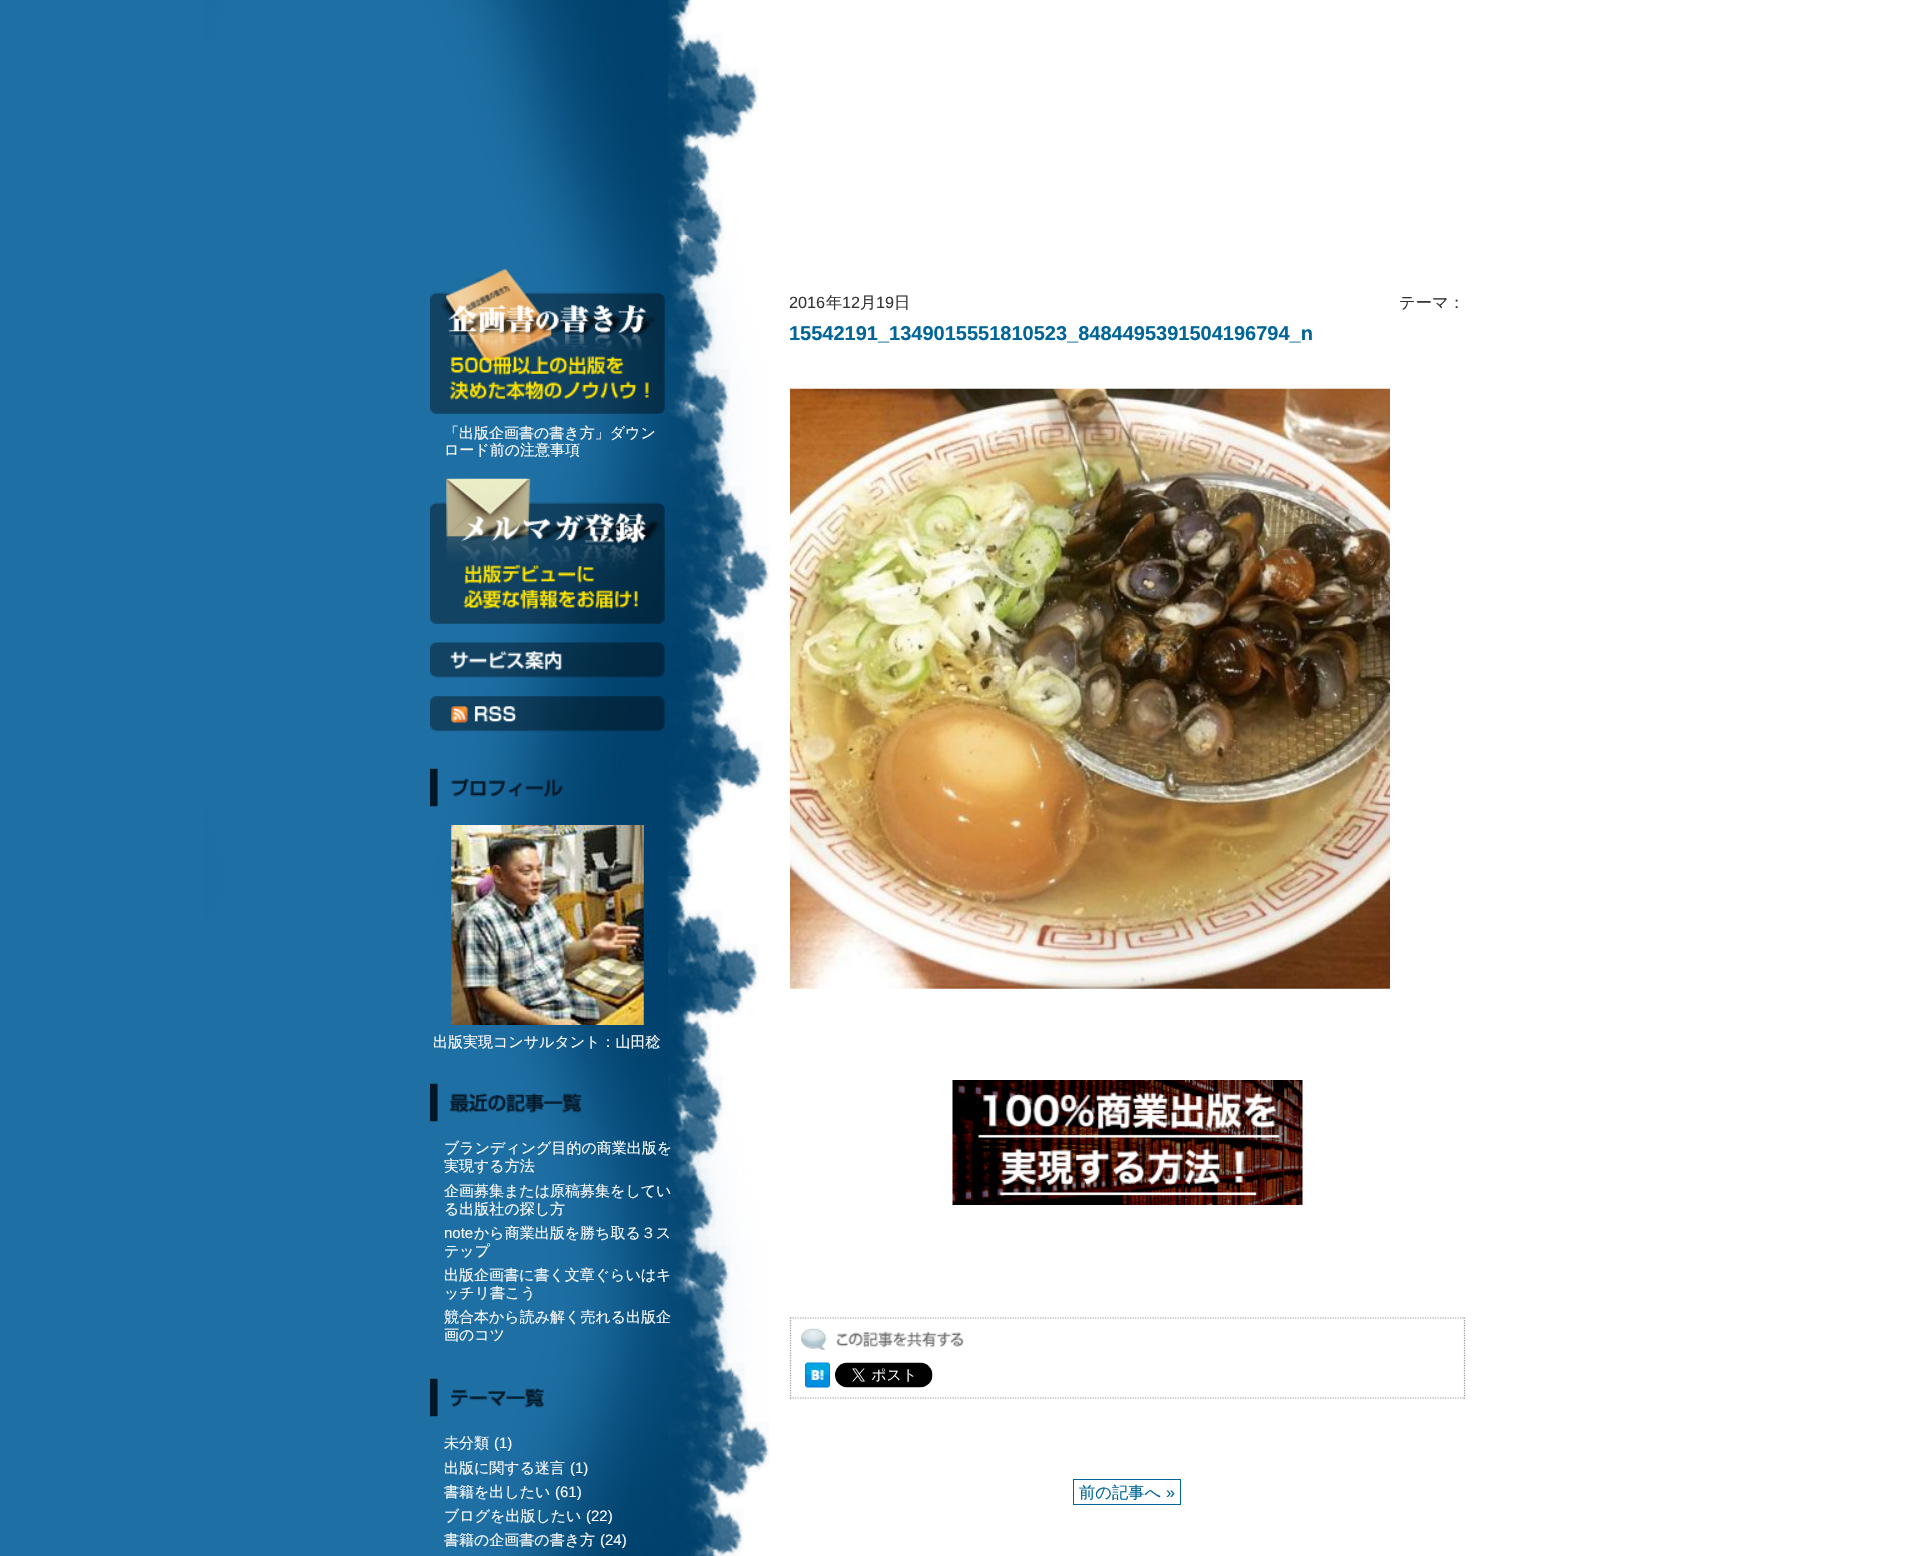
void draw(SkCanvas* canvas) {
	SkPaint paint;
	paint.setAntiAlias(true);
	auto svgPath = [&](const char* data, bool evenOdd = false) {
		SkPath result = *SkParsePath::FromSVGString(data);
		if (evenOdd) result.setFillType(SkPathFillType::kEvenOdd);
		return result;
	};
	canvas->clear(0xffffffff);
	canvas->drawImageRect(SkImages::DeferredFromEncodedData(SkData::MakeFromFileName("img1.png")), SkRect::MakeXYWH(0, 0, 770, 1556), SkSamplingOptions());
	canvas->drawImageRect(SkImages::DeferredFromEncodedData(SkData::MakeFromFileName("img2.png")), SkRect::MakeXYWH(430, 268, 235, 146), SkSamplingOptions());
	SkFont f1(fontMgr->matchFamilyStyle("WenQuanYi Zen Hei", SkFontStyle(500, SkFontStyle::kNormal_Width, SkFontStyle::kUpright_Slant)), 15);
	f1.setSubpixel(true);
	paint.setColor(0xfff9f9f9);
	canvas->drawString("「出版企画書の書き方」ダウン", 444, 438, f1, paint);
	canvas->drawString("ロード前の注意事項", 444, 455, f1, paint);
	canvas->drawImageRect(SkImages::DeferredFromEncodedData(SkData::MakeFromFileName("img3.png")), SkRect::MakeXYWH(430, 478, 235, 146), SkSamplingOptions());
	canvas->drawImageRect(SkImages::DeferredFromEncodedData(SkData::MakeFromFileName("img4.png")), SkRect::MakeXYWH(430, 642, 235, 36), SkSamplingOptions());
	canvas->drawImageRect(SkImages::DeferredFromEncodedData(SkData::MakeFromFileName("img5.png")), SkRect::MakeXYWH(430, 696, 235, 36), SkSamplingOptions());
	canvas->drawImageRect(SkImages::DeferredFromEncodedData(SkData::MakeFromFileName("img6.png")), SkRect::MakeXYWH(430, 768, 133, 39), SkSamplingOptions());
	canvas->drawImageRect(SkImages::DeferredFromEncodedData(SkData::MakeFromFileName("img7.png")), SkRect::MakeXYWH(451, 825, 193, 200), SkSamplingOptions());
	canvas->drawString("出版実現コンサルタント：山田稔", 433, 1047, f1, paint);
	canvas->drawImageRect(SkImages::DeferredFromEncodedData(SkData::MakeFromFileName("img8.png")), SkRect::MakeXYWH(430, 1083, 152, 39), SkSamplingOptions());
	canvas->drawString("ブランディング目的の商業出版を", 444, 1153, f1, paint);
	canvas->drawString("実現する方法", 444, 1171, f1, paint);
	canvas->drawString("企画募集または原稿募集をしてい", 444, 1196, f1, paint);
	canvas->drawString("る出版社の探し方", 444, 1214, f1, paint);
	SkFont f2(fontMgr->matchFamilyStyle("Liberation Sans", SkFontStyle::Normal()), 15);
	f2.setSubpixel(true);
	canvas->drawString("note", 444, 1238, f2, paint);
	canvas->drawString("から商業出版を勝ち取る３ス", 474, 1238, f1, paint);
	canvas->drawString("テップ", 444, 1256, f1, paint);
	canvas->drawString("出版企画書に書く文章ぐらいはキ", 444, 1280, f1, paint);
	canvas->drawString("ッチリ書こう", 444, 1298, f1, paint);
	canvas->drawString("競合本から読み解く売れる出版企", 444, 1322, f1, paint);
	canvas->drawString("画のコツ", 444, 1340, f1, paint);
	canvas->drawImageRect(SkImages::DeferredFromEncodedData(SkData::MakeFromFileName("img9.png")), SkRect::MakeXYWH(430, 1378, 114, 39), SkSamplingOptions());
	canvas->drawString("未分類", 444, 1448, f1, paint);
	canvas->drawString("(1)", 494, 1448, f2, paint);
	canvas->drawString("出版に関する迷言", 444, 1473, f1, paint);
	canvas->drawString("(1)", 570, 1473, f2, paint);
	canvas->drawString("書籍を出したい", 444, 1497, f1, paint);
	canvas->drawString("(61)", 555, 1497, f2, paint);
	canvas->drawString("ブログを出版したい", 444, 1521, f1, paint);
	canvas->drawString("(22)", 586, 1521, f2, paint);
	canvas->drawString("書籍の企画書の書き方", 444, 1545, f1, paint);
	canvas->drawString("(24)", 600, 1545, f2, paint);
	SkFont f3(fontMgr->matchFamilyStyle("Liberation Sans", SkFontStyle::Normal()), 16.25);
	f3.setSubpixel(true);
	paint.setColor(0xff333333);
	canvas->drawString("2016", 789, 308, f3, paint);
	SkFont f4(fontMgr->matchFamilyStyle("WenQuanYi Zen Hei", SkFontStyle(500, SkFontStyle::kNormal_Width, SkFontStyle::kUpright_Slant)), 16.25);
	f4.setSubpixel(true);
	canvas->drawString("年", 826, 308, f4, paint);
	canvas->drawString("12", 842, 308, f3, paint);
	canvas->drawString("月", 860, 308, f4, paint);
	canvas->drawString("19", 876, 308, f3, paint);
	canvas->drawString("日", 894, 308, f4, paint);
	canvas->drawString("テーマ：", 1399, 308, f4, paint);
	SkFont f5(fontMgr->matchFamilyStyle("Liberation Sans", SkFontStyle::Bold()), 20);
	f5.setSubpixel(true);
	paint.setColor(0xff006699);
	canvas->drawString("15542191_1349015551810523_8484495391504196794_n", 789, 340, f5, paint);
	canvas->drawImageRect(SkImages::DeferredFromEncodedData(SkData::MakeFromFileName("img10.png")), SkRect::MakeXYWH(790, 388, 600, 601), SkSamplingOptions());
	canvas->drawImageRect(SkImages::DeferredFromEncodedData(SkData::MakeFromFileName("img11.png")), SkRect::MakeXYWH(952, 1080, 351, 125), SkSamplingOptions());
	paint.setStroke(true);
	paint.setStrokeWidth(1.2);
	paint.setColor(0xff999999);
	paint.setPathEffect(SkDashPathEffect::Make({{1.25f, 1.25f}}, 0));
	canvas->drawPath(svgPath("M790 1318H1465"), paint);
	paint.setPathEffect(nullptr);
	paint.setPathEffect(SkDashPathEffect::Make({{1.25f, 1.25f}}, 0));
	canvas->drawPath(svgPath("M1464.5 1317.5V1399"), paint);
	paint.setPathEffect(nullptr);
	paint.setPathEffect(SkDashPathEffect::Make({{1.25f, 1.25f}}, 0));
	canvas->drawPath(svgPath("M790 1398H1465"), paint);
	paint.setPathEffect(nullptr);
	paint.setPathEffect(SkDashPathEffect::Make({{1.25f, 1.25f}}, 0));
	canvas->drawPath(svgPath("M790.5 1317.5V1399"), paint);
	paint.setPathEffect(nullptr);
	canvas->drawImageRect(SkImages::DeferredFromEncodedData(SkData::MakeFromFileName("img12.png")), SkRect::MakeXYWH(801, 1328, 163, 22), SkSamplingOptions());
	canvas->drawImageRect(SkImages::DeferredFromEncodedData(SkData::MakeFromFileName("img13.png")), SkRect::MakeXYWH(805, 1362, 25, 26), SkSamplingOptions());
	canvas->drawImageRect(SkImages::DeferredFromEncodedData(SkData::MakeFromFileName("img14.png")), SkRect::MakeXYWH(835, 1362, 98, 26), SkSamplingOptions());
	paint.setStrokeWidth(1);
	paint.setColor(0xff006699);
	canvas->drawRect(SkRect::MakeXYWH(1073.5, 1479.5, 107, 25), paint);
	paint.setStroke(false);
	canvas->drawString("前の記事へ", 1079, 1498, f4, paint);
	canvas->drawString("»", 1166, 1498, f3, paint);
}
